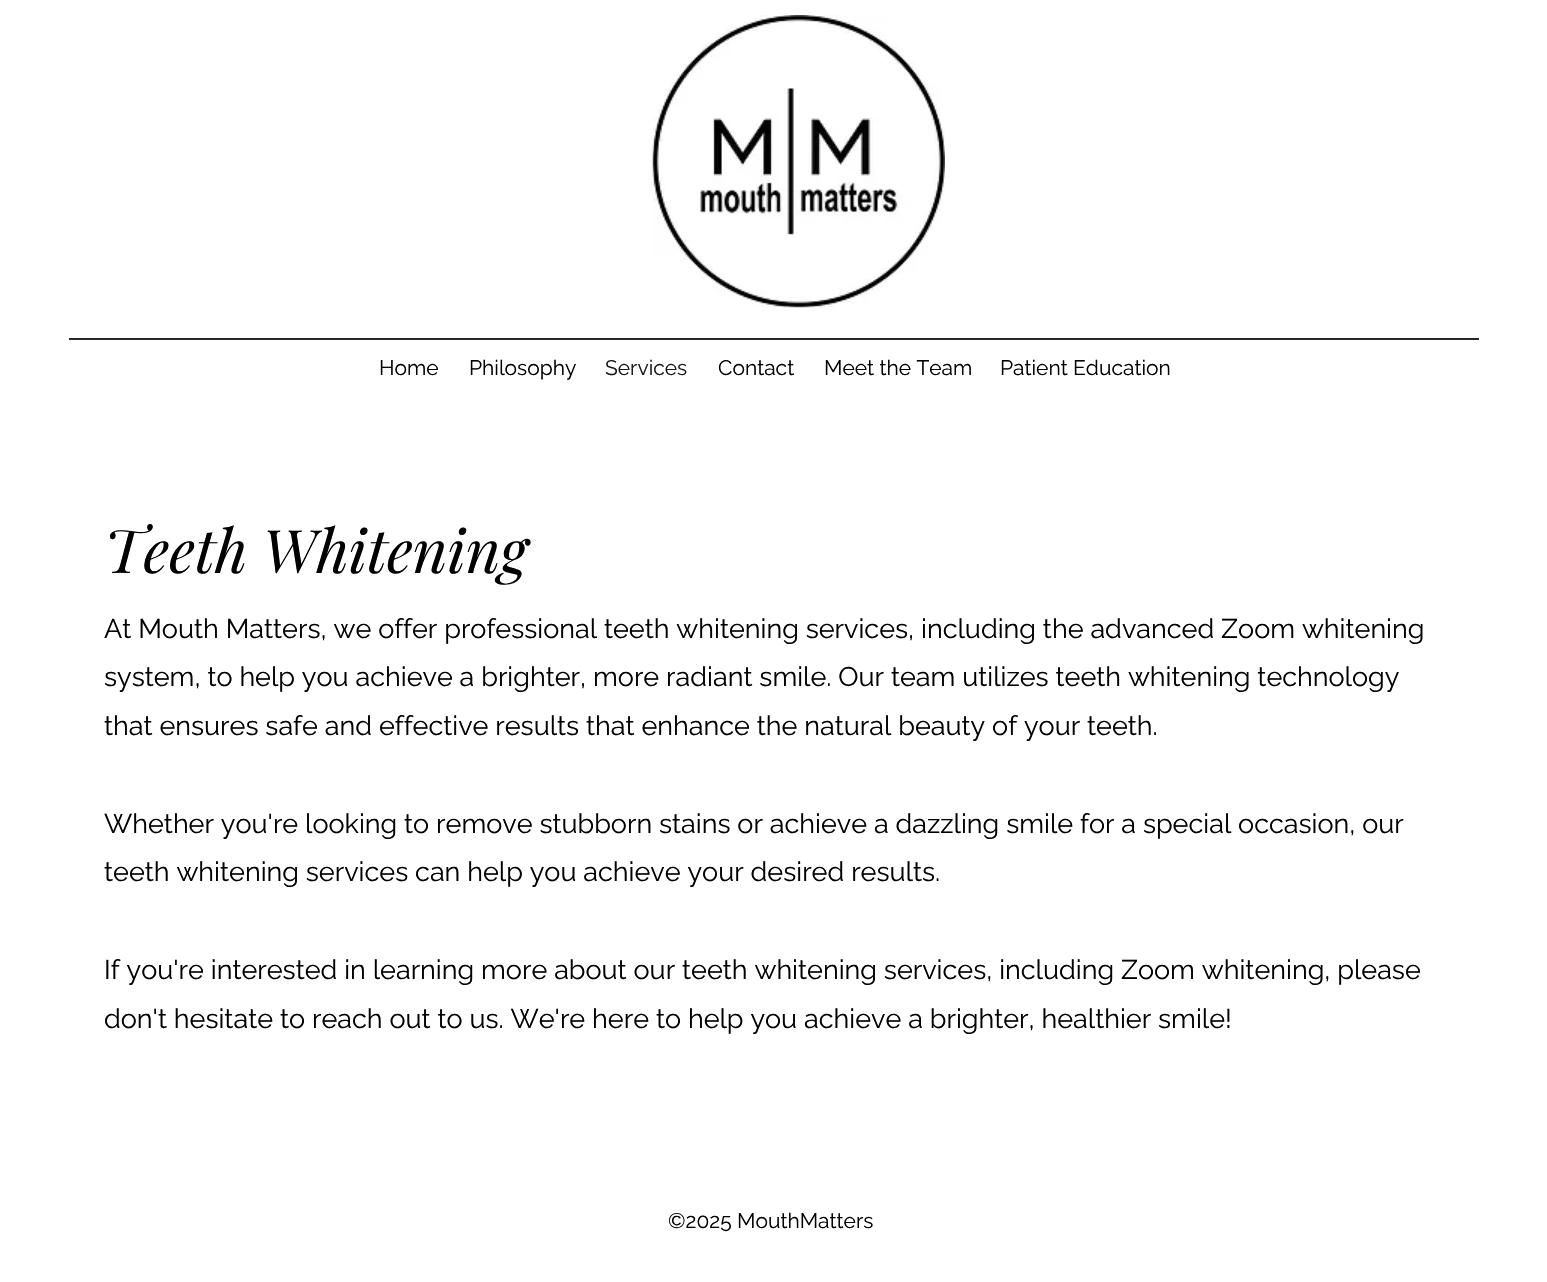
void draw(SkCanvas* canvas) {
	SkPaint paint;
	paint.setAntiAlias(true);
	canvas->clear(0xffffffff);
	canvas->drawImageRect(SkImages::DeferredFromEncodedData(SkData::MakeFromFileName("img1.png")), SkRect::MakeXYWH(652, 15, 293, 293), SkSamplingOptions());
	paint.setColor(0xff262626);
	canvas->drawRect(SkRect::MakeXYWH(69, 338, 1410, 2), paint);
	SkFont f1(fontMgr->matchFamilyStyle("Raleway", SkFontStyle::Normal()), 21);
	f1.setSubpixel(true);
	paint.setColor(0xff000000);
	canvas->drawString("Home", 379, 375, f1, paint);
	canvas->drawString("Philosophy", 469, 375, f1, paint);
	paint.setColor(0xff191919);
	canvas->drawString("Services", 605, 375, f1, paint);
	paint.setColor(0xff000000);
	canvas->drawString("Contact", 718, 375, f1, paint);
	canvas->drawString("Meet the Team", 824, 375, f1, paint);
	canvas->drawString("Patient Education", 1000, 375, f1, paint);
	SkFont f2(fontMgr->matchFamilyStyle("Playfair Display", SkFontStyle::Italic()), 60);
	f2.setSubpixel(true);
	canvas->drawString("Teeth Whitening", 104, 573, f2, paint);
	SkFont f3(fontMgr->matchFamilyStyle("Raleway", SkFontStyle::Normal()), 27);
	f3.setSubpixel(true);
	canvas->drawString("At Mouth Matters, we offer professional teeth whitening services, including the advanced Zoom whitening", 104, 638, f3, paint);
	canvas->drawString("system, to help you achieve a brighter, more radiant smile. Our team utilizes teeth whitening technology", 104, 686, f3, paint);
	canvas->drawString("that ensures safe and effective results that enhance the natural beauty of your teeth.", 104, 735, f3, paint);
	canvas->drawString("Whether you're looking to remove stubborn stains or achieve a dazzling smile for a special occasion, our", 104, 833, f3, paint);
	canvas->drawString("teeth whitening services can help you achieve your desired results.", 104, 881, f3, paint);
	canvas->drawString("If you're interested in learning more about our teeth whitening services, including Zoom whitening, please", 104, 979, f3, paint);
	canvas->drawString("don't hesitate to reach out to us. We're here to help you achieve a brighter, healthier smile!", 104, 1028, f3, paint);
	canvas->drawString("©2025 MouthMatters", 668, 1228, f1, paint);
}
